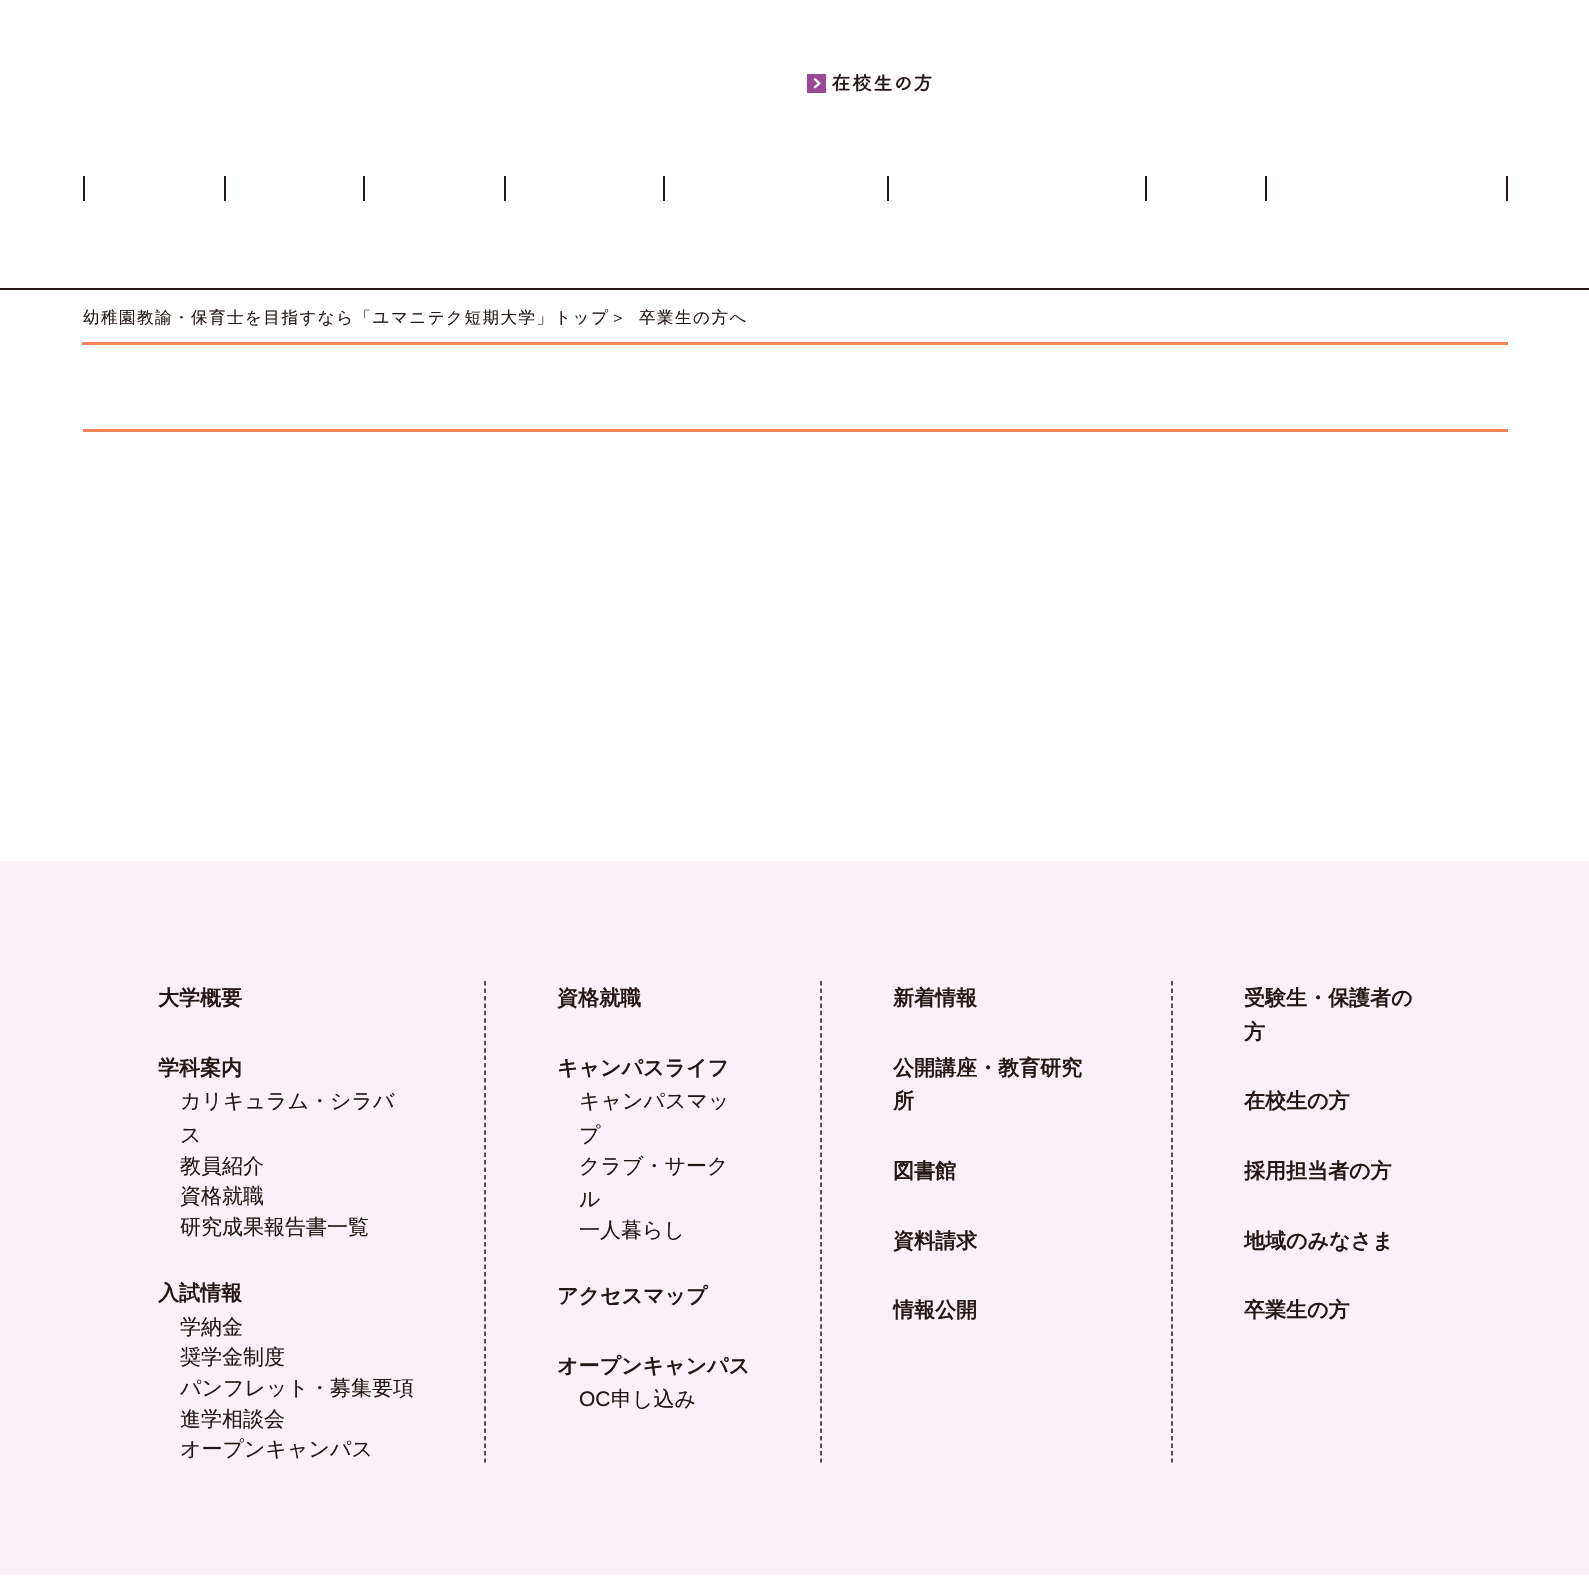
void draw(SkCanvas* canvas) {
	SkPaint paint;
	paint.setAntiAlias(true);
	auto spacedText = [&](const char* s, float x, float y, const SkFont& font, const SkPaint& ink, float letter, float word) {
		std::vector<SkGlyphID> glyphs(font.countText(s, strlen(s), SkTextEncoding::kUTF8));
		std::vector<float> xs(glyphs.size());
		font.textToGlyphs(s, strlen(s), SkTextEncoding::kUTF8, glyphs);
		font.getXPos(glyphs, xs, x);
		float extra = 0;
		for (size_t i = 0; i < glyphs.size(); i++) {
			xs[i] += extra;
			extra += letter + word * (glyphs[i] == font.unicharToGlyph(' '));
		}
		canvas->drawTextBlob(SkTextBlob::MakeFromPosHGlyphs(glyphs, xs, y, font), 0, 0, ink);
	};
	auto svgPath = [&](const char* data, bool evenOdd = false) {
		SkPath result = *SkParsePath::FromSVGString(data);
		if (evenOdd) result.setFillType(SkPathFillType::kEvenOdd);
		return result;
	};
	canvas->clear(0xffffffff);
	paint.setColor(0xff231815);
	canvas->drawRect(SkRect::MakeXYWH(0, 288, 1589, 2), paint);
	canvas->drawImageRect(SkImages::DeferredFromEncodedData(SkData::MakeFromFileName("img1.png")), SkRect::MakeXYWH(807, 74, 125, 19), SkSamplingOptions());
	canvas->drawRect(SkRect::MakeXYWH(83, 176, 2, 25), paint);
	canvas->drawRect(SkRect::MakeXYWH(224, 176, 2, 25), paint);
	canvas->drawRect(SkRect::MakeXYWH(363, 176, 2, 25), paint);
	canvas->drawRect(SkRect::MakeXYWH(504, 176, 2, 25), paint);
	canvas->drawRect(SkRect::MakeXYWH(663, 176, 2, 25), paint);
	canvas->drawRect(SkRect::MakeXYWH(887, 176, 2, 25), paint);
	canvas->drawRect(SkRect::MakeXYWH(1145, 176, 2, 25), paint);
	canvas->drawRect(SkRect::MakeXYWH(1265, 176, 2, 25), paint);
	canvas->drawRect(SkRect::MakeXYWH(1506, 176, 2, 25), paint);
	paint.setColor(0xfff58357);
	canvas->drawRect(SkRect::MakeXYWH(82, 342, 1426, 3), paint);
	SkFont f1(fontMgr->matchFamilyStyle("WenQuanYi Zen Hei", SkFontStyle(500, SkFontStyle::kNormal_Width, SkFontStyle::kUpright_Slant)), 16.5);
	f1.setSubpixel(true);
	paint.setColor(0xff231815);
	spacedText("幼稚園教諭・保育士を目指すなら「ユマニテク短期大学」トップ＞", 83, 323, f1, paint, 1.5, 0);
	spacedText("卒業生の方へ", 639, 323, f1, paint, 1.5, 0);
	paint.setColor(0xfff58357);
	canvas->drawRect(SkRect::MakeXYWH(83, 429, 1425, 3), paint);
	paint.setColor(0xfff8f2f8);
	canvas->drawRect(SkRect::MakeXYWH(0, 861, 1589, 714), paint);
	paint.setStroke(true);
	paint.setStrokeWidth(1.5);
	paint.setColor(0xff231815);
	paint.setPathEffect(SkDashPathEffect::Make({{4.5f, 2.96f}}, 0));
	canvas->drawPath(svgPath("M485 981V1462.5"), paint);
	paint.setPathEffect(nullptr);
	SkFont f2(fontMgr->matchFamilyStyle("WenQuanYi Zen Hei", SkFontStyle::Bold()), 21);
	f2.setSubpixel(true);
	paint.setStroke(false);
	canvas->drawString("大学概要", 158, 1005, f2, paint);
	canvas->drawString("学科案内", 158, 1075, f2, paint);
	SkFont f3(fontMgr->matchFamilyStyle("WenQuanYi Zen Hei", SkFontStyle(500, SkFontStyle::kNormal_Width, SkFontStyle::kUpright_Slant)), 21);
	f3.setSubpixel(true);
	canvas->drawString("カリキュラム・シラバ", 180, 1108, f3, paint);
	canvas->drawString("ス", 180, 1142, f3, paint);
	canvas->drawString("教員紹介", 180, 1173, f3, paint);
	canvas->drawString("資格就職", 180, 1203, f3, paint);
	canvas->drawString("研究成果報告書一覧", 180, 1234, f3, paint);
	canvas->drawString("入試情報", 158, 1300, f2, paint);
	canvas->drawString("学納金", 180, 1334, f3, paint);
	canvas->drawString("奨学金制度", 180, 1364, f3, paint);
	canvas->drawString("パンフレット・募集要項", 180, 1395, f3, paint);
	canvas->drawString("進学相談会", 180, 1426, f3, paint);
	canvas->drawString("オープンキャンパス", 180, 1456, f3, paint);
	paint.setStroke(true);
	paint.setPathEffect(SkDashPathEffect::Make({{4.5f, 2.96f}}, 0));
	canvas->drawPath(svgPath("M821 981V1462.5"), paint);
	paint.setPathEffect(nullptr);
	paint.setStroke(false);
	canvas->drawString("資格就職", 557, 1005, f2, paint);
	canvas->drawString("キャンパスライフ", 557, 1075, f2, paint);
	canvas->drawString("キャンパスマッ", 579, 1108, f3, paint);
	canvas->drawString("プ", 579, 1142, f3, paint);
	canvas->drawString("クラブ・サーク", 579, 1173, f3, paint);
	canvas->drawString("ル", 579, 1206, f3, paint);
	canvas->drawString("一人暮らし", 579, 1237, f3, paint);
	canvas->drawString("アクセスマップ", 557, 1303, f2, paint);
	canvas->drawString("オープンキャンパス", 557, 1373, f2, paint);
	SkFont f4(fontMgr->matchFamilyStyle("Liberation Sans", SkFontStyle::Normal()), 21);
	f4.setSubpixel(true);
	canvas->drawString("OC", 579, 1406, f4, paint);
	canvas->drawString("申し込み", 611, 1406, f3, paint);
	paint.setStroke(true);
	paint.setPathEffect(SkDashPathEffect::Make({{4.5f, 2.96f}}, 0));
	canvas->drawPath(svgPath("M1172 981V1462.5"), paint);
	paint.setPathEffect(nullptr);
	paint.setStroke(false);
	canvas->drawString("新着情報", 893, 1005, f2, paint);
	canvas->drawString("公開講座・教育研究", 893, 1075, f2, paint);
	canvas->drawString("所", 893, 1108, f2, paint);
	canvas->drawString("図書館", 893, 1178, f2, paint);
	canvas->drawString("資料請求", 893, 1248, f2, paint);
	canvas->drawString("情報公開", 893, 1317, f2, paint);
	canvas->drawString("受験生・保護者の", 1244, 1005, f2, paint);
	canvas->drawString("方", 1244, 1039, f2, paint);
	canvas->drawString("在校生の方", 1244, 1108, f2, paint);
	canvas->drawString("採用担当者の方", 1244, 1178, f2, paint);
	canvas->drawString("地域のみなさま", 1244, 1248, f2, paint);
	canvas->drawString("卒業生の方", 1244, 1317, f2, paint);
}
